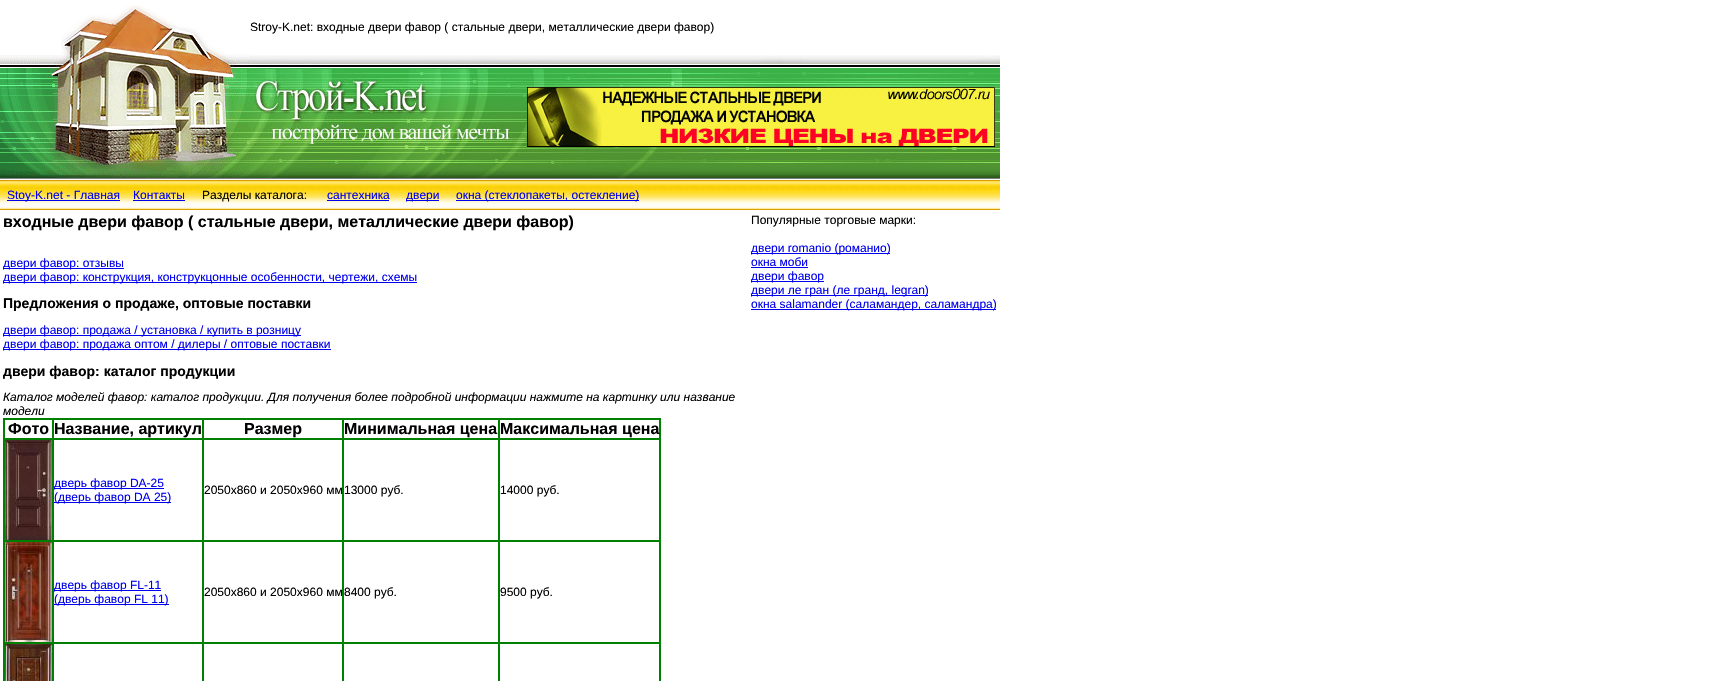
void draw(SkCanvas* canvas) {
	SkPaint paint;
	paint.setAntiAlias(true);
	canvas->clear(0xffffffff);
	canvas->drawImageRect(SkImages::DeferredFromEncodedData(SkData::MakeFromFileName("img1.png")), SkRect::MakeXYWH(61, 5, 163, 49), SkSamplingOptions());
	SkFont f1(fontMgr->matchFamilyStyle("Liberation Sans", SkFontStyle::Normal()), 12);
	f1.setSubpixel(true);
	paint.setColor(0xff000000);
	canvas->drawString("Stroy-K.net: входные двери фавор ( стальные двери, металлические двери фавор)", 250, 31, f1, paint);
	canvas->drawImageRect(SkImages::DeferredFromEncodedData(SkData::MakeFromFileName("img2.png")), SkRect::MakeXYWH(0, 54, 250, 125), SkSamplingOptions());
	canvas->drawImageRect(SkImages::DeferredFromEncodedData(SkData::MakeFromFileName("img3.png")), SkRect::MakeXYWH(250, 55, 750, 124), SkSamplingOptions());
	canvas->drawImageRect(SkImages::DeferredFromEncodedData(SkData::MakeFromFileName("img4.png")), SkRect::MakeXYWH(527, 87, 468, 60), SkSamplingOptions());
	canvas->drawImageRect(SkImages::DeferredFromEncodedData(SkData::MakeFromFileName("img5.png")), SkRect::MakeXYWH(0, 180, 1000, 30), SkSamplingOptions());
	paint.setColor(0xff0000ee);
	canvas->drawRect(SkRect::MakeXYWH(7, 200, 113, 1), paint);
	canvas->drawString("Stoy-K.net - Главная", 7, 199, f1, paint);
	canvas->drawString("Контакты", 133, 199, f1, paint);
	canvas->drawRect(SkRect::MakeXYWH(133, 200, 52, 1), paint);
	paint.setColor(0xff000000);
	canvas->drawString("Разделы каталога:", 202, 199, f1, paint);
	paint.setColor(0xff0000ee);
	canvas->drawString("сантехника", 327, 199, f1, paint);
	canvas->drawRect(SkRect::MakeXYWH(327, 200, 62, 1), paint);
	canvas->drawRect(SkRect::MakeXYWH(406, 200, 33, 1), paint);
	canvas->drawString("двери", 406, 199, f1, paint);
	canvas->drawRect(SkRect::MakeXYWH(456, 200, 183, 1), paint);
	canvas->drawString("окна (стеклопакеты, остекление)", 456, 199, f1, paint);
	SkFont f2(fontMgr->matchFamilyStyle("Liberation Sans", SkFontStyle::Bold()), 16);
	f2.setSubpixel(true);
	paint.setColor(0xff000000);
	canvas->drawString("входные двери фавор ( стальные двери, металлические двери фавор)", 3, 227, f2, paint);
	paint.setColor(0xff0000ee);
	canvas->drawRect(SkRect::MakeXYWH(3, 268, 121, 1), paint);
	canvas->drawString("двери фавор: отзывы", 3, 267, f1, paint);
	canvas->drawRect(SkRect::MakeXYWH(3, 282, 414, 1), paint);
	canvas->drawString("двери фавор: конструкция, конструкцонные особенности, чертежи, схемы", 3, 281, f1, paint);
	SkFont f3(fontMgr->matchFamilyStyle("Liberation Sans", SkFontStyle::Bold()), 14);
	f3.setSubpixel(true);
	paint.setColor(0xff000000);
	canvas->drawString("Предложения о продаже, оптовые поставки", 3, 308, f3, paint);
	paint.setColor(0xff0000ee);
	canvas->drawRect(SkRect::MakeXYWH(3, 335, 298, 1), paint);
	canvas->drawString("двери фавор: продажа / установка / купить в розницу", 3, 334, f1, paint);
	canvas->drawRect(SkRect::MakeXYWH(3, 349, 328, 1), paint);
	canvas->drawString("двери фавор: продажа оптом / дилеры / оптовые поставки", 3, 348, f1, paint);
	paint.setColor(0xff000000);
	canvas->drawString("двери фавор: каталог продукции", 3, 376, f3, paint);
	SkFont f4(fontMgr->matchFamilyStyle("Liberation Sans", SkFontStyle::Italic()), 12);
	f4.setSubpixel(true);
	canvas->drawString("Каталог моделей фавор: каталог продукции. Для получения более подробной информации нажмите на картинку или название", 3, 401, f4, paint);
	canvas->drawString("модели", 3, 415, f4, paint);
	paint.setStroke(true);
	paint.setStrokeWidth(1);
	paint.setColor(0xff008000);
	canvas->drawRect(SkRect::MakeXYWH(3.5, 418.5, 657, 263), paint);
	canvas->drawRect(SkRect::MakeXYWH(4.5, 419.5, 48, 19), paint);
	paint.setStroke(false);
	paint.setColor(0xff000000);
	canvas->drawString("Фото", 8, 434, f2, paint);
	paint.setStroke(true);
	paint.setColor(0xff008000);
	canvas->drawRect(SkRect::MakeXYWH(53.5, 419.5, 149, 19), paint);
	paint.setStroke(false);
	paint.setColor(0xff000000);
	canvas->drawString("Название, артикул", 54, 434, f2, paint);
	paint.setStroke(true);
	paint.setColor(0xff008000);
	canvas->drawRect(SkRect::MakeXYWH(203.5, 419.5, 139, 19), paint);
	paint.setStroke(false);
	paint.setColor(0xff000000);
	canvas->drawString("Размер", 244, 434, f2, paint);
	paint.setStroke(true);
	paint.setColor(0xff008000);
	canvas->drawRect(SkRect::MakeXYWH(343.5, 419.5, 155, 19), paint);
	paint.setStroke(false);
	paint.setColor(0xff000000);
	canvas->drawString("Минимальная цена", 344, 434, f2, paint);
	paint.setStroke(true);
	paint.setColor(0xff008000);
	canvas->drawRect(SkRect::MakeXYWH(499.5, 419.5, 160, 19), paint);
	paint.setStroke(false);
	paint.setColor(0xff000000);
	canvas->drawString("Максимальная цена", 500, 434, f2, paint);
	paint.setStroke(true);
	paint.setColor(0xff008000);
	canvas->drawRect(SkRect::MakeXYWH(4.5, 439.5, 48, 101), paint);
	canvas->drawImageRect(SkImages::DeferredFromEncodedData(SkData::MakeFromFileName("img6.png")), SkRect::MakeXYWH(5, 440, 47, 100), SkSamplingOptions());
	canvas->drawRect(SkRect::MakeXYWH(53.5, 439.5, 149, 101), paint);
	paint.setStroke(false);
	paint.setColor(0xff0000ee);
	canvas->drawRect(SkRect::MakeXYWH(54, 488, 110, 1), paint);
	canvas->drawString("дверь фавор DA-25", 54, 487, f1, paint);
	canvas->drawRect(SkRect::MakeXYWH(54, 502, 117, 1), paint);
	canvas->drawString("(дверь фавор DA 25)", 54, 501, f1, paint);
	paint.setStroke(true);
	paint.setColor(0xff008000);
	canvas->drawRect(SkRect::MakeXYWH(203.5, 439.5, 139, 101), paint);
	paint.setStroke(false);
	paint.setColor(0xff000000);
	canvas->drawString("2050x860 и 2050x960 мм", 204, 494, f1, paint);
	paint.setStroke(true);
	paint.setColor(0xff008000);
	canvas->drawRect(SkRect::MakeXYWH(343.5, 439.5, 155, 101), paint);
	paint.setStroke(false);
	paint.setColor(0xff000000);
	canvas->drawString("13000 руб.", 344, 494, f1, paint);
	paint.setStroke(true);
	paint.setColor(0xff008000);
	canvas->drawRect(SkRect::MakeXYWH(499.5, 439.5, 160, 101), paint);
	paint.setStroke(false);
	paint.setColor(0xff000000);
	canvas->drawString("14000 руб.", 500, 494, f1, paint);
	paint.setStroke(true);
	paint.setColor(0xff008000);
	canvas->drawRect(SkRect::MakeXYWH(4.5, 541.5, 48, 101), paint);
	canvas->drawImageRect(SkImages::DeferredFromEncodedData(SkData::MakeFromFileName("img7.png")), SkRect::MakeXYWH(5, 542, 47, 100), SkSamplingOptions());
	canvas->drawRect(SkRect::MakeXYWH(53.5, 541.5, 149, 101), paint);
	paint.setStroke(false);
	paint.setColor(0xff0000ee);
	canvas->drawRect(SkRect::MakeXYWH(54, 590, 107, 1), paint);
	canvas->drawString("дверь фавор FL-11", 54, 589, f1, paint);
	canvas->drawRect(SkRect::MakeXYWH(54, 604, 115, 1), paint);
	canvas->drawString("(дверь фавор FL 11)", 54, 603, f1, paint);
	paint.setStroke(true);
	paint.setColor(0xff008000);
	canvas->drawRect(SkRect::MakeXYWH(203.5, 541.5, 139, 101), paint);
	paint.setStroke(false);
	paint.setColor(0xff000000);
	canvas->drawString("2050x860 и 2050x960 мм", 204, 596, f1, paint);
	paint.setStroke(true);
	paint.setColor(0xff008000);
	canvas->drawRect(SkRect::MakeXYWH(343.5, 541.5, 155, 101), paint);
	paint.setStroke(false);
	paint.setColor(0xff000000);
	canvas->drawString("8400 руб.", 344, 596, f1, paint);
	paint.setStroke(true);
	paint.setColor(0xff008000);
	canvas->drawRect(SkRect::MakeXYWH(499.5, 541.5, 160, 101), paint);
	paint.setStroke(false);
	paint.setColor(0xff000000);
	canvas->drawString("9500 руб.", 500, 596, f1, paint);
	paint.setStroke(true);
	paint.setColor(0xff008000);
	canvas->drawRect(SkRect::MakeXYWH(4.5, 643.5, 48, 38), paint);
	canvas->drawImageRect(SkImages::DeferredFromEncodedData(SkData::MakeFromFileName("img8.png")), SkRect::MakeXYWH(5, 644, 47, 37), SkSamplingOptions());
	canvas->drawRect(SkRect::MakeXYWH(53.5, 643.5, 149, 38), paint);
	canvas->drawRect(SkRect::MakeXYWH(203.5, 643.5, 139, 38), paint);
	canvas->drawRect(SkRect::MakeXYWH(343.5, 643.5, 155, 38), paint);
	canvas->drawRect(SkRect::MakeXYWH(499.5, 643.5, 160, 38), paint);
	paint.setStroke(false);
	paint.setColor(0xff000000);
	canvas->drawString("Популярные торговые марки:", 751, 224, f1, paint);
	paint.setColor(0xff0000ee);
	canvas->drawRect(SkRect::MakeXYWH(751, 253, 139, 1), paint);
	canvas->drawString("двери romanio (романио)", 751, 252, f1, paint);
	canvas->drawString("окна моби", 751, 266, f1, paint);
	canvas->drawRect(SkRect::MakeXYWH(751, 267, 57, 1), paint);
	canvas->drawRect(SkRect::MakeXYWH(751, 281, 73, 1), paint);
	canvas->drawString("двери фавор", 751, 280, f1, paint);
	canvas->drawRect(SkRect::MakeXYWH(751, 295, 177, 1), paint);
	canvas->drawString("двери ле гран (ле гранд, legran)", 751, 294, f1, paint);
	canvas->drawRect(SkRect::MakeXYWH(751, 309, 245, 1), paint);
	canvas->drawString("окна salamander (саламандер, саламандра)", 751, 308, f1, paint);
}
